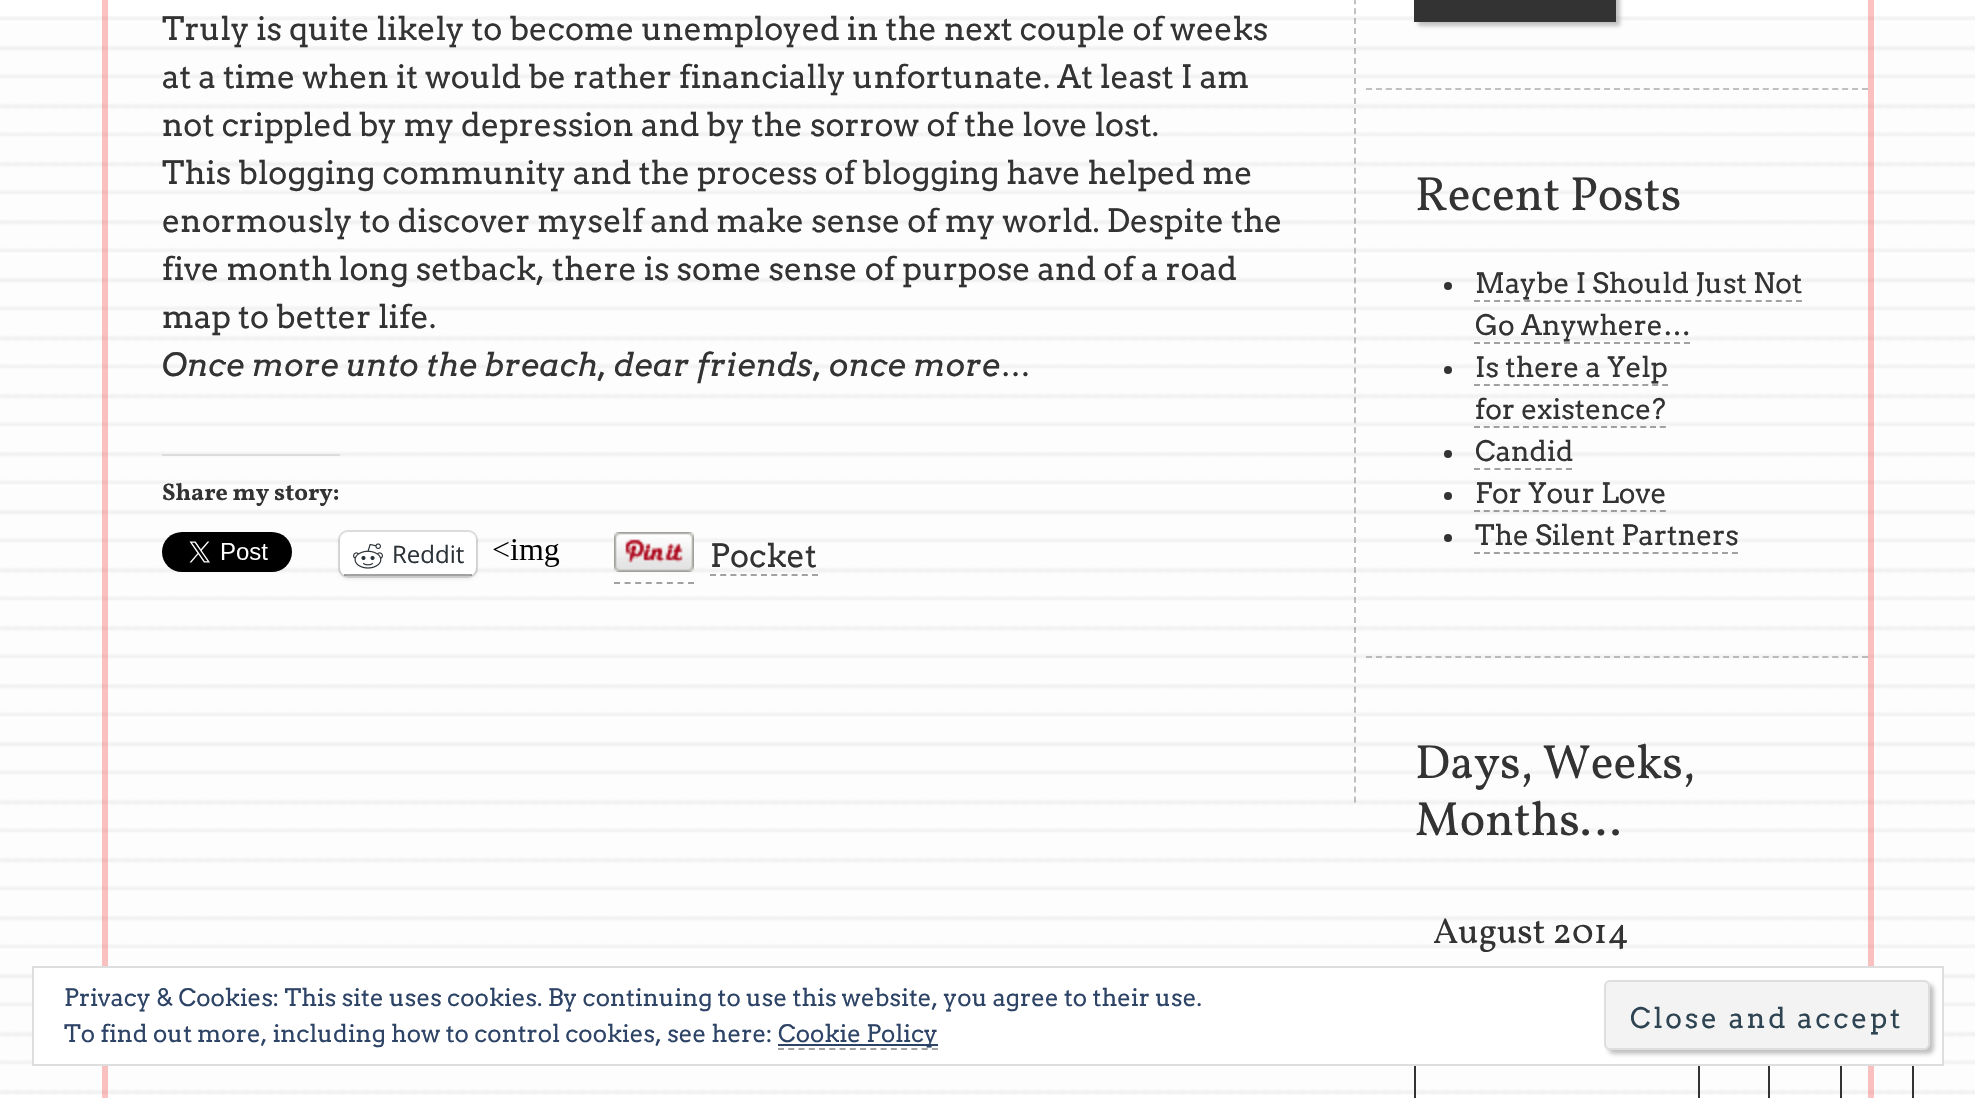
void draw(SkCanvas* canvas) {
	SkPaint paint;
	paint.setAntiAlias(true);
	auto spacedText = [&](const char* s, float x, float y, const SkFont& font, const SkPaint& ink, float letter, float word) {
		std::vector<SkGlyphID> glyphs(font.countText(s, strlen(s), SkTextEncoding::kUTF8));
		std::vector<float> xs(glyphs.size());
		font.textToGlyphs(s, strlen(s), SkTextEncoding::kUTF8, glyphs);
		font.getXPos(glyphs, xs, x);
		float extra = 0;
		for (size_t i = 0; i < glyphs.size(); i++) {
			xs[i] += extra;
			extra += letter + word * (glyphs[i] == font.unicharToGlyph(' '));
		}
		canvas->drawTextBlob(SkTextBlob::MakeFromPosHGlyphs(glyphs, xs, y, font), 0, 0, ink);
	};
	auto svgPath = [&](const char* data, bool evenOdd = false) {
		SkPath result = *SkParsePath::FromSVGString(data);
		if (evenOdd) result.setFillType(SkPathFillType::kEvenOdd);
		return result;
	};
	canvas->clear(0xffffffff);
	canvas->drawImageRect(SkImages::DeferredFromEncodedData(SkData::MakeFromFileName("img1.png")), SkRect::MakeXYWH(0, 16, 1975, 1079), SkSamplingOptions());
	paint.setColor(0x40f40d0d);
	canvas->drawRect(SkRect::MakeXYWH(1868, 0, 6, 1098), paint);
	canvas->drawRect(SkRect::MakeXYWH(102, 0, 6, 1098), paint);
	paint.setStroke(true);
	paint.setStrokeWidth(2);
	paint.setColor(0x66646464);
	paint.setPathEffect(SkDashPathEffect::Make({{6, 3.98f}}, 0));
	canvas->drawPath(svgPath("M1355-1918V804"), paint);
	paint.setPathEffect(nullptr);
	SkFont f1(fontMgr->matchFamilyStyle("Arvo", SkFontStyle::Normal()), 32);
	f1.setSubpixel(true);
	paint.setStroke(false);
	paint.setColor(0xff333333);
	canvas->drawString("Truly is quite likely to become unemployed in the next couple of weeks", 162, 40, f1, paint);
	canvas->drawString("at a time when it would be rather financially unfortunate. At least I am", 162, 88, f1, paint);
	canvas->drawString("not crippled by my depression and by the sorrow of the love lost.", 162, 136, f1, paint);
	canvas->drawString("This blogging community and the process of blogging have helped me", 162, 184, f1, paint);
	canvas->drawString("enormously to discover myself and make sense of my world. Despite the", 162, 232, f1, paint);
	canvas->drawString("five month long setback, there is some sense of purpose and of a road", 162, 280, f1, paint);
	canvas->drawString("map to better life.", 162, 328, f1, paint);
	SkFont f2(fontMgr->matchFamilyStyle("Arvo", SkFontStyle::Italic()), 32);
	f2.setSubpixel(true);
	canvas->drawString("Once more unto the breach, dear friends, once more…", 162, 376, f2, paint);
	paint.setColor(0xffdcdcde);
	canvas->drawRect(SkRect::MakeXYWH(162, 454, 178, 2), paint);
	SkFont f3(fontMgr->matchFamilyStyle("Vollkorn", SkFontStyle::Bold()), 24);
	f3.setSubpixel(true);
	paint.setColor(0xff333333);
	canvas->drawString("Share my story:", 162, 500, f3, paint);
	canvas->drawImageRect(SkImages::DeferredFromEncodedData(SkData::MakeFromFileName("img2.png")), SkRect::MakeXYWH(162, 532, 130, 40), SkSamplingOptions());
	paint.setStroke(true);
	paint.setColor(0x1f000000);
	canvas->drawRoundRect(SkRect::MakeXYWH(339, 531, 138, 46), 9, 9, paint);
	paint.setStroke(false);
	paint.setMaskFilter(SkMaskFilter::MakeBlur(kNormal_SkBlurStyle, 2));
	canvas->drawRoundRect(SkRect::MakeXYWH(340, 534, 136, 44), 8, 8, paint);
	paint.setMaskFilter(nullptr);
	paint.setColor(0xffffffff);
	canvas->drawRoundRect(SkRect::MakeXYWH(340, 532, 136, 44), 8, 8, paint);
	paint.setColor(0x99646464);
	canvas->drawRect(SkRect::MakeXYWH(344, 574, 128, 2), paint);
	canvas->drawImageRect(SkImages::DeferredFromEncodedData(SkData::MakeFromFileName("img3.png")), SkRect::MakeXYWH(353, 543, 30, 26), SkSamplingOptions());
	SkFont f4(fontMgr->matchFamilyStyle("Open Sans", SkFontStyle::Normal()), 24);
	f4.setSubpixel(true);
	paint.setColor(0xff2c3338);
	canvas->drawString("Reddit", 392, 563, f4, paint);
	canvas->drawImageRect(SkImages::DeferredFromEncodedData(SkData::MakeFromFileName("img4.png")), SkRect::MakeXYWH(493, 539, 67, 28), SkSamplingOptions());
	paint.setStroke(true);
	paint.setColor(0xffa1a1a1);
	paint.setPathEffect(SkDashPathEffect::Make({{6, 4.58f}}, 0));
	canvas->drawPath(svgPath("M614 583H694"), paint);
	paint.setPathEffect(nullptr);
	canvas->drawImageRect(SkImages::DeferredFromEncodedData(SkData::MakeFromFileName("img5.png")), SkRect::MakeXYWH(614, 532, 80, 40), SkSamplingOptions());
	paint.setStroke(false);
	paint.setColor(0xff333333);
	canvas->drawString("Pocket", 710, 567, f1, paint);
	paint.setStroke(true);
	paint.setColor(0xffa1a1a1);
	paint.setPathEffect(SkDashPathEffect::Make({{6, 4.2f}}, 0));
	canvas->drawPath(svgPath("M710 575H818"), paint);
	paint.setPathEffect(nullptr);
	paint.setStroke(false);
	paint.setColor(0x66646464);
	paint.setMaskFilter(SkMaskFilter::MakeBlur(kNormal_SkBlurStyle, 2));
	canvas->drawRect(SkRect::MakeXYWH(1418, -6, 202, 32), paint);
	paint.setMaskFilter(nullptr);
	paint.setColor(0xff333333);
	canvas->drawRect(SkRect::MakeXYWH(1414, 0, 202, 22), paint);
	paint.setStroke(true);
	paint.setColor(0xffc0c0c0);
	paint.setPathEffect(SkDashPathEffect::Make({{6, 3.92f}}, 0));
	canvas->drawPath(svgPath("M1366 89H1868"), paint);
	paint.setPathEffect(nullptr);
	SkFont f5(fontMgr->matchFamilyStyle("Vollkorn", SkFontStyle::Normal()), 48);
	f5.setSubpixel(true);
	paint.setStroke(false);
	paint.setColor(0xff333333);
	canvas->drawString("Recent Posts", 1415, 210, f5, paint);
	canvas->drawCircle(1448, 286, 4, paint);
	SkFont f6(fontMgr->matchFamilyStyle("Arvo", SkFontStyle::Normal()), 28);
	f6.setSubpixel(true);
	canvas->drawString("Maybe I Should Just Not", 1475, 293, f6, paint);
	paint.setStroke(true);
	paint.setColor(0xffa1a1a1);
	paint.setPathEffect(SkDashPathEffect::Make({{6, 4.06f}}, 0));
	canvas->drawPath(svgPath("M1474 301H1802"), paint);
	paint.setPathEffect(nullptr);
	paint.setStroke(false);
	paint.setColor(0xff333333);
	canvas->drawString("Go Anywhere…", 1475, 335, f6, paint);
	paint.setStroke(true);
	paint.setColor(0xffa1a1a1);
	paint.setPathEffect(SkDashPathEffect::Make({{6, 4}}, 0));
	canvas->drawPath(svgPath("M1474 343H1690"), paint);
	paint.setPathEffect(nullptr);
	paint.setStroke(false);
	paint.setColor(0xff333333);
	canvas->drawCircle(1448, 370, 4, paint);
	canvas->drawString("Is there a Yelp", 1475, 377, f6, paint);
	paint.setStroke(true);
	paint.setColor(0xffa1a1a1);
	paint.setPathEffect(SkDashPathEffect::Make({{6, 3.9f}}, 0));
	canvas->drawPath(svgPath("M1474 385H1668"), paint);
	paint.setPathEffect(nullptr);
	paint.setStroke(false);
	paint.setColor(0xff333333);
	canvas->drawString("for existence?", 1475, 419, f6, paint);
	paint.setStroke(true);
	paint.setColor(0x99646464);
	paint.setPathEffect(SkDashPathEffect::Make({{6, 3.78f}}, 0));
	canvas->drawPath(svgPath("M1474 427H1666"), paint);
	paint.setPathEffect(nullptr);
	paint.setStroke(false);
	paint.setColor(0xff333333);
	canvas->drawCircle(1448, 454, 4, paint);
	canvas->drawString("Candid", 1475, 461, f6, paint);
	paint.setStroke(true);
	paint.setColor(0xffa1a1a1);
	paint.setPathEffect(SkDashPathEffect::Make({{6, 4.22f}}, 0));
	canvas->drawPath(svgPath("M1474 469H1572"), paint);
	paint.setPathEffect(nullptr);
	paint.setStroke(false);
	paint.setColor(0xff333333);
	canvas->drawCircle(1448, 496, 4, paint);
	canvas->drawString("For Your Love", 1475, 503, f6, paint);
	paint.setStroke(true);
	paint.setColor(0x99646464);
	paint.setPathEffect(SkDashPathEffect::Make({{6, 3.78f}}, 0));
	canvas->drawPath(svgPath("M1474 511H1666"), paint);
	paint.setPathEffect(nullptr);
	paint.setStroke(false);
	paint.setColor(0xff333333);
	canvas->drawCircle(1448, 538, 4, paint);
	canvas->drawString("The Silent Partners", 1475, 545, f6, paint);
	paint.setStroke(true);
	paint.setColor(0xffa1a1a1);
	paint.setPathEffect(SkDashPathEffect::Make({{6, 3.92f}}, 0));
	canvas->drawPath(svgPath("M1474 553H1738"), paint);
	paint.setPathEffect(nullptr);
	paint.setColor(0xffbababa);
	paint.setPathEffect(SkDashPathEffect::Make({{6, 3.92f}}, 0));
	canvas->drawPath(svgPath("M1366 657H1868"), paint);
	paint.setPathEffect(nullptr);
	paint.setStroke(false);
	paint.setColor(0xff333333);
	canvas->drawString("Days, Weeks,", 1415, 778, f5, paint);
	canvas->drawString("Months…", 1415, 835, f5, paint);
	SkFont f7(fontMgr->matchFamilyStyle("Vollkorn", SkFontStyle::Normal()), 36);
	f7.setSubpixel(true);
	canvas->drawString("August 2014", 1433, 943, f7, paint);
	canvas->drawRect(SkRect::MakeXYWH(1414, 1060, 2, 38), paint);
	canvas->drawRect(SkRect::MakeXYWH(1698, 1060, 2, 38), paint);
	canvas->drawRect(SkRect::MakeXYWH(1768, 1060, 2, 38), paint);
	canvas->drawRect(SkRect::MakeXYWH(1912, 1060, 2, 38), paint);
	canvas->drawRect(SkRect::MakeXYWH(1840, 1060, 2, 38), paint);
	paint.setColor(0xffffffff);
	canvas->drawRect(SkRect::MakeXYWH(33, 967, 1910, 98), paint);
	paint.setStroke(true);
	paint.setColor(0xffdedede);
	canvas->drawRect(SkRect::MakeXYWH(33, 967, 1910, 98), paint);
	SkFont f8(fontMgr->matchFamilyStyle("Arvo", SkFontStyle::Normal()), 24);
	f8.setSubpixel(true);
	paint.setStroke(false);
	paint.setColor(0xff2e4467);
	canvas->drawString("Privacy & Cookies: This site uses cookies. By continuing to use this website, you agree to their use.", 64, 1006, f8, paint);
	canvas->drawString("To find out more, including how to control cookies, see here:", 64, 1042, f8, paint);
	canvas->drawRect(SkRect::MakeXYWH(778, 1044, 160, 2), paint);
	canvas->drawString("Cookie Policy", 778, 1042, f8, paint);
	paint.setStroke(true);
	paint.setColor(0xffa2a2a2);
	paint.setPathEffect(SkDashPathEffect::Make({{6, 4.26f}}, 0));
	canvas->drawPath(svgPath("M778 1049H938"), paint);
	paint.setPathEffect(nullptr);
	paint.setStroke(false);
	paint.setColor(0x66646464);
	paint.setMaskFilter(SkMaskFilter::MakeBlur(kNormal_SkBlurStyle, 2));
	canvas->drawRoundRect(SkRect::MakeXYWH(1608, 984, 326, 70), 6, 6, paint);
	paint.setMaskFilter(nullptr);
	paint.setColor(0xfff3f3f3);
	canvas->drawRoundRect(SkRect::MakeXYWH(1605, 981, 324, 68), 5, 5, paint);
	paint.setStroke(true);
	paint.setColor(0xffdedede);
	canvas->drawRoundRect(SkRect::MakeXYWH(1605, 981, 324, 68), 5, 5, paint);
	paint.setStroke(false);
	paint.setColor(0xff2e4453);
	spacedText("Close and accept", 1630, 1028, f6, paint, 2.75, 0);
}
